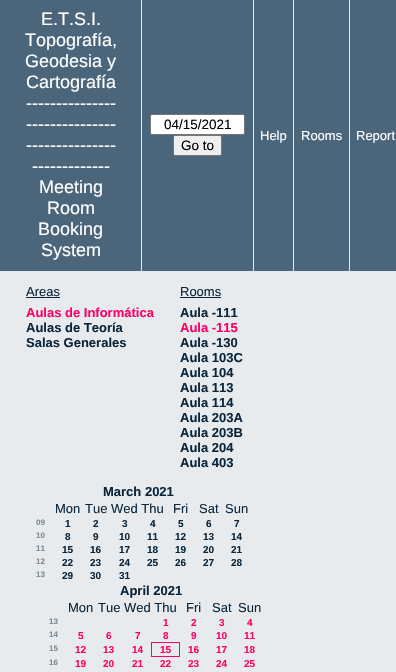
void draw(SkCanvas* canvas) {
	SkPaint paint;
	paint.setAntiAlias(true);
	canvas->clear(0xffe7ebee);
	paint.setColor(0xff4b667b);
	canvas->drawRect(SkRect::MakeXYWH(0, 0, 396, 271), paint);
	SkFont f1(fontMgr->matchFamilyStyle("Liberation Sans", SkFontStyle::Normal()), 18);
	f1.setSubpixel(true);
	paint.setColor(0xffffffff);
	canvas->drawString("E.T.S.I.", 41, 25, f1, paint);
	canvas->drawString("Topografía,", 25, 46, f1, paint);
	canvas->drawString("Geodesia y", 25, 67, f1, paint);
	canvas->drawString("Cartografía", 26, 88, f1, paint);
	canvas->drawString("---------------", 26, 109, f1, paint);
	canvas->drawString("---------------", 26, 130, f1, paint);
	canvas->drawString("---------------", 26, 151, f1, paint);
	canvas->drawString("-------------", 32, 172, f1, paint);
	canvas->drawString("Meeting", 39, 193, f1, paint);
	canvas->drawString("Room", 47, 214, f1, paint);
	canvas->drawString("Booking", 38, 235, f1, paint);
	canvas->drawString("System", 41, 256, f1, paint);
	paint.setColor(0xffe7ebee);
	canvas->drawRect(SkRect::MakeXYWH(141, 0, 1, 271), paint);
	paint.setColor(0xffffffff);
	canvas->drawRoundRect(SkRect::MakeXYWH(150.5, 114.5, 94, 20), 1.5, 1.5, paint);
	paint.setStroke(true);
	paint.setStrokeWidth(1);
	paint.setColor(0xff767676);
	canvas->drawRoundRect(SkRect::MakeXYWH(150.5, 114.5, 94, 20), 1.5, 1.5, paint);
	SkFont f2(fontMgr->matchFamilyStyle("Liberation Sans", SkFontStyle::Normal()), 13.5);
	f2.setSubpixel(true);
	paint.setStroke(false);
	paint.setColor(0xff000000);
	canvas->drawString("04/15/2021", 164, 129, f2, paint);
	paint.setColor(0xffefefef);
	canvas->drawRoundRect(SkRect::MakeXYWH(173.5, 135.5, 48, 20), 1.5, 1.5, paint);
	paint.setStroke(true);
	paint.setColor(0xff767676);
	canvas->drawRoundRect(SkRect::MakeXYWH(173.5, 135.5, 48, 20), 1.5, 1.5, paint);
	paint.setStroke(false);
	paint.setColor(0xff000000);
	canvas->drawString("Go to", 181, 150, f2, paint);
	paint.setColor(0xffe7ebee);
	canvas->drawRect(SkRect::MakeXYWH(253, 0, 1, 271), paint);
	SkFont f3(fontMgr->matchFamilyStyle("Liberation Sans", SkFontStyle::Normal()), 13);
	f3.setSubpixel(true);
	paint.setColor(0xffffffff);
	canvas->drawString("Help", 260, 140, f3, paint);
	paint.setColor(0xffe7ebee);
	canvas->drawRect(SkRect::MakeXYWH(293, 0, 1, 271), paint);
	paint.setColor(0xffffffff);
	canvas->drawString("Rooms", 301, 140, f3, paint);
	paint.setColor(0xffe7ebee);
	canvas->drawRect(SkRect::MakeXYWH(349, 0, 1, 271), paint);
	paint.setColor(0xffffffff);
	canvas->drawString("Report", 356, 140, f3, paint);
	paint.setColor(0xff0b263b);
	canvas->drawString("Areas", 26, 296, f3, paint);
	canvas->drawRect(SkRect::MakeXYWH(26, 297, 34, 1), paint);
	SkFont f4(fontMgr->matchFamilyStyle("Liberation Sans", SkFontStyle::Bold()), 13);
	f4.setSubpixel(true);
	paint.setColor(0xffff0066);
	canvas->drawString("Aulas de Informática", 26, 317, f4, paint);
	paint.setColor(0xff0b263b);
	canvas->drawString("Aulas de Teoría", 26, 332, f4, paint);
	canvas->drawString("Salas Generales", 26, 347, f4, paint);
	canvas->drawString("Rooms", 180, 296, f3, paint);
	canvas->drawRect(SkRect::MakeXYWH(180, 297, 41, 1), paint);
	canvas->drawString("Aula -111", 180, 317, f4, paint);
	paint.setColor(0xffff0066);
	canvas->drawString("Aula -115", 180, 332, f4, paint);
	paint.setColor(0xff0b263b);
	canvas->drawString("Aula -130", 180, 347, f4, paint);
	canvas->drawString("Aula 103C", 180, 362, f4, paint);
	canvas->drawString("Aula 104", 180, 377, f4, paint);
	canvas->drawString("Aula 113", 180, 392, f4, paint);
	canvas->drawString("Aula 114", 180, 407, f4, paint);
	canvas->drawString("Aula 203A", 180, 422, f4, paint);
	canvas->drawString("Aula 203B", 180, 437, f4, paint);
	canvas->drawString("Aula 204", 180, 452, f4, paint);
	canvas->drawString("Aula 403", 180, 467, f4, paint);
	canvas->drawString("March 2021", 103, 496, f4, paint);
	canvas->drawString("Mon", 55, 513, f3, paint);
	canvas->drawString("Tue Wed Thu", 85, 513, f3, paint);
	canvas->drawString("Fri", 173, 513, f3, paint);
	canvas->drawString("Sat", 199, 513, f3, paint);
	canvas->drawString("Sun", 225, 513, f3, paint);
	SkFont f5(fontMgr->matchFamilyStyle("Liberation Sans", SkFontStyle::Bold()), 8);
	f5.setSubpixel(true);
	paint.setColor(0xff798995);
	canvas->drawString("09", 36, 525, f5, paint);
	SkFont f6(fontMgr->matchFamilyStyle("Liberation Sans", SkFontStyle::Bold()), 10);
	f6.setSubpixel(true);
	paint.setColor(0xff0b263b);
	canvas->drawString("1", 65, 527, f6, paint);
	canvas->drawString("2", 93, 527, f6, paint);
	canvas->drawString("3", 122, 527, f6, paint);
	canvas->drawString("4", 150, 527, f6, paint);
	canvas->drawString("5", 178, 527, f6, paint);
	canvas->drawString("6", 206, 527, f6, paint);
	canvas->drawString("7", 234, 527, f6, paint);
	paint.setColor(0xff798995);
	canvas->drawString("10", 36, 538, f5, paint);
	paint.setColor(0xff0b263b);
	canvas->drawString("8", 65, 540, f6, paint);
	canvas->drawString("9", 93, 540, f6, paint);
	canvas->drawString("10", 119, 540, f6, paint);
	canvas->drawString("11", 147, 540, f6, paint);
	canvas->drawString("12", 175, 540, f6, paint);
	canvas->drawString("13", 203, 540, f6, paint);
	canvas->drawString("14", 231, 540, f6, paint);
	paint.setColor(0xff798995);
	canvas->drawString("11", 36, 551, f5, paint);
	paint.setColor(0xff0b263b);
	canvas->drawString("15", 62, 553, f6, paint);
	canvas->drawString("16", 90, 553, f6, paint);
	canvas->drawString("17", 119, 553, f6, paint);
	canvas->drawString("18", 147, 553, f6, paint);
	canvas->drawString("19", 175, 553, f6, paint);
	canvas->drawString("20", 203, 553, f6, paint);
	canvas->drawString("21", 231, 553, f6, paint);
	paint.setColor(0xff798995);
	canvas->drawString("12", 36, 564, f5, paint);
	paint.setColor(0xff0b263b);
	canvas->drawString("22", 62, 566, f6, paint);
	canvas->drawString("23", 90, 566, f6, paint);
	canvas->drawString("24", 119, 566, f6, paint);
	canvas->drawString("25", 147, 566, f6, paint);
	canvas->drawString("26", 175, 566, f6, paint);
	canvas->drawString("27", 203, 566, f6, paint);
	canvas->drawString("28", 231, 566, f6, paint);
	paint.setColor(0xff798995);
	canvas->drawString("13", 36, 577, f5, paint);
	paint.setColor(0xff0b263b);
	canvas->drawString("29", 62, 579, f6, paint);
	canvas->drawString("30", 90, 579, f6, paint);
	canvas->drawString("31", 119, 579, f6, paint);
	canvas->drawString("April 2021", 120, 595, f4, paint);
	canvas->drawString("Mon", 68, 612, f3, paint);
	canvas->drawString("Tue Wed Thu", 98, 612, f3, paint);
	canvas->drawString("Fri", 186, 612, f3, paint);
	canvas->drawString("Sat", 212, 612, f3, paint);
	canvas->drawString("Sun", 238, 612, f3, paint);
	paint.setColor(0xff798995);
	canvas->drawString("13", 49, 624, f5, paint);
	paint.setColor(0xffff0066);
	canvas->drawString("1", 163, 626, f6, paint);
	canvas->drawString("2", 191, 626, f6, paint);
	canvas->drawString("3", 219, 626, f6, paint);
	canvas->drawString("4", 247, 626, f6, paint);
	paint.setColor(0xff798995);
	canvas->drawString("14", 49, 637, f5, paint);
	paint.setColor(0xffff0066);
	canvas->drawString("5", 78, 639, f6, paint);
	canvas->drawString("6", 106, 639, f6, paint);
	canvas->drawString("7", 135, 639, f6, paint);
	canvas->drawString("8", 163, 639, f6, paint);
	canvas->drawString("9", 191, 639, f6, paint);
	canvas->drawString("10", 216, 639, f6, paint);
	canvas->drawString("11", 244, 639, f6, paint);
	paint.setColor(0xff798995);
	canvas->drawString("15", 49, 651, f5, paint);
	paint.setColor(0xffff0066);
	canvas->drawString("12", 75, 653, f6, paint);
	canvas->drawString("13", 103, 653, f6, paint);
	canvas->drawString("14", 132, 653, f6, paint);
	canvas->drawRect(SkRect::MakeXYWH(151, 642, 29, 1), paint);
	canvas->drawRect(SkRect::MakeXYWH(179, 642, 1, 15), paint);
	canvas->drawRect(SkRect::MakeXYWH(151, 656, 29, 1), paint);
	canvas->drawRect(SkRect::MakeXYWH(151, 642, 1, 15), paint);
	canvas->drawString("15", 160, 653, f6, paint);
	canvas->drawString("16", 188, 653, f6, paint);
	canvas->drawString("17", 216, 653, f6, paint);
	canvas->drawString("18", 244, 653, f6, paint);
	paint.setColor(0xff798995);
	canvas->drawString("16", 49, 665, f5, paint);
	paint.setColor(0xffff0066);
	canvas->drawString("19", 75, 667, f6, paint);
	canvas->drawString("20", 103, 667, f6, paint);
	canvas->drawString("21", 132, 667, f6, paint);
	canvas->drawString("22", 160, 667, f6, paint);
	canvas->drawString("23", 188, 667, f6, paint);
	canvas->drawString("24", 216, 667, f6, paint);
	canvas->drawString("25", 244, 667, f6, paint);
}
